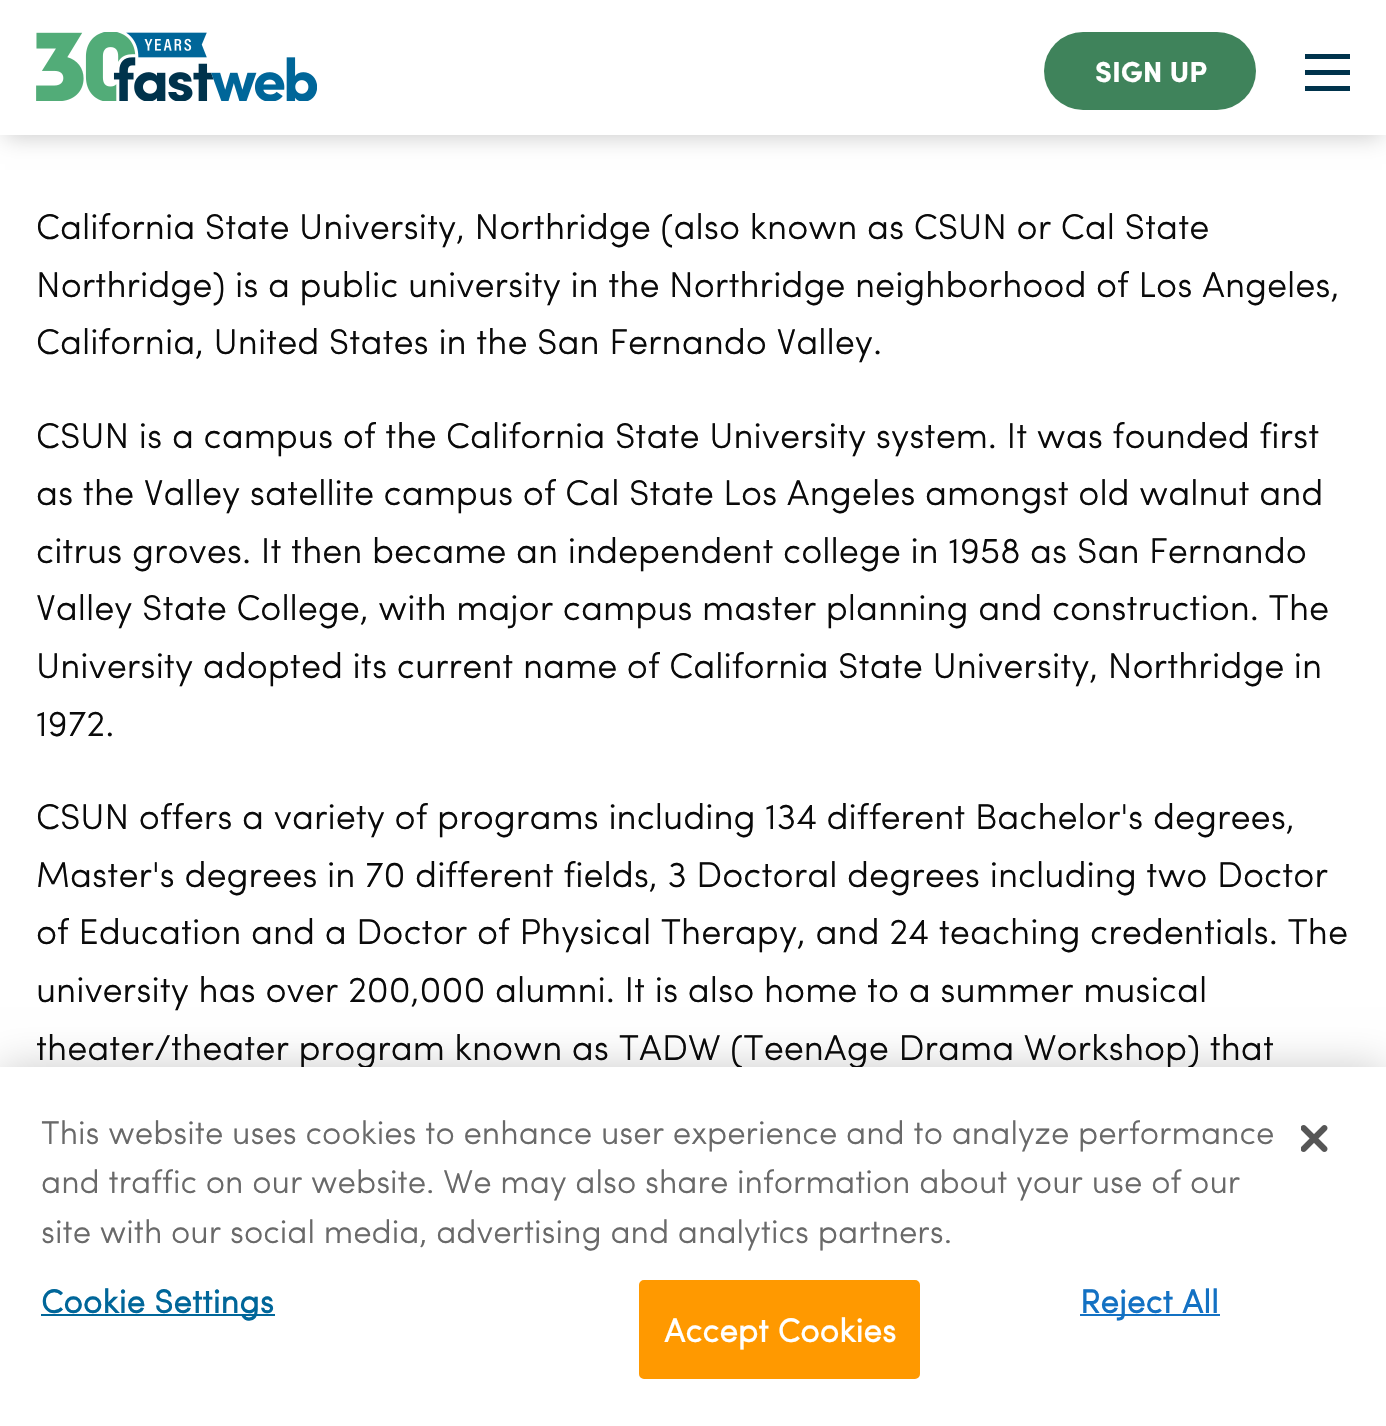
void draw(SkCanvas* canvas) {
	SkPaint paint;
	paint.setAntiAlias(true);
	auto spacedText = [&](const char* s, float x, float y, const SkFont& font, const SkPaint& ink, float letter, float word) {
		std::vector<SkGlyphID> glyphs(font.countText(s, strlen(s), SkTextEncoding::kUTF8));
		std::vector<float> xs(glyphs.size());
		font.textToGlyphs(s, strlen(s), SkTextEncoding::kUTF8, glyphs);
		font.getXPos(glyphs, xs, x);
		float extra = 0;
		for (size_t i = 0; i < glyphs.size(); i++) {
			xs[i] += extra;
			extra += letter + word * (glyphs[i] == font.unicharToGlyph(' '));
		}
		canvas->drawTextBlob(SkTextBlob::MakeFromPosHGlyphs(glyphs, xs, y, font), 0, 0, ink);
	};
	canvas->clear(0xffffffff);
	paint.setColor(0x33000000);
	paint.setMaskFilter(SkMaskFilter::MakeBlur(kNormal_SkBlurStyle, 11));
	canvas->drawRect(SkRect::MakeXYWH(5, 11, 1377, 126), paint);
	paint.setMaskFilter(nullptr);
	paint.setColor(0xffffffff);
	canvas->drawRect(SkRect::MakeXYWH(0, 0, 1386, 135), paint);
	canvas->drawImageRect(SkImages::DeferredFromEncodedData(SkData::MakeFromFileName("img1.png")), SkRect::MakeXYWH(36, 32, 281, 69), SkSamplingOptions());
	paint.setColor(0xff3f835b);
	canvas->drawRoundRect(SkRect::MakeXYWH(1044, 32, 212, 78), 39, 39, paint);
	SkFont f1(fontMgr->matchFamilyStyle("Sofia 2", SkFontStyle::Normal()), 29);
	f1.setSubpixel(true);
	paint.setColor(0xffffffff);
	canvas->drawString("SIGN UP", 1095, 82, f1, paint);
	paint.setColor(0xff00334c);
	canvas->drawRect(SkRect::MakeXYWH(1305, 70, 45, 5), paint);
	canvas->drawRect(SkRect::MakeXYWH(1305, 54, 45, 5), paint);
	canvas->drawRect(SkRect::MakeXYWH(1305, 86, 45, 5), paint);
	SkFont f2(fontMgr->matchFamilyStyle("Sofia", SkFontStyle::Normal()), 36);
	f2.setSubpixel(true);
	paint.setColor(0xff0a0a0a);
	canvas->drawString("California State University, Northridge (also known as CSUN or Cal State", 36, 239, f2, paint);
	canvas->drawString("Northridge) is a public university in the Northridge neighborhood of Los Angeles,", 36, 297, f2, paint);
	canvas->drawString("California, United States in the San Fernando Valley.", 36, 354, f2, paint);
	canvas->drawString("CSUN is a campus of the California State University system. It was founded first", 36, 448, f2, paint);
	canvas->drawString("as the Valley satellite campus of Cal State Los Angeles amongst old walnut and", 36, 505, f2, paint);
	canvas->drawString("citrus groves. It then became an independent college in 1958 as San Fernando", 36, 563, f2, paint);
	canvas->drawString("Valley State College, with major campus master planning and construction. The", 36, 620, f2, paint);
	canvas->drawString("University adopted its current name of California State University, Northridge in", 36, 678, f2, paint);
	canvas->drawString("1972.", 36, 736, f2, paint);
	canvas->drawString("CSUN offers a variety of programs including 134 different Bachelor's degrees,", 36, 829, f2, paint);
	canvas->drawString("Master's degrees in 70 different fields, 3 Doctoral degrees including two Doctor", 36, 887, f2, paint);
	canvas->drawString("of Education and a Doctor of Physical Therapy, and 24 teaching credentials. The", 36, 944, f2, paint);
	canvas->drawString("university has over 200,000 alumni. It is also home to a summer musical", 36, 1002, f2, paint);
	canvas->drawString("theater/theater program known as TADW (TeenAge Drama Workshop) that", 36, 1060, f2, paint);
	paint.setColor(0x33000000);
	paint.setMaskFilter(SkMaskFilter::MakeBlur(kNormal_SkBlurStyle, 20));
	canvas->drawRect(SkRect::MakeXYWH(0, 1067, 1386, 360), paint);
	paint.setMaskFilter(nullptr);
	paint.setColor(0xffffffff);
	canvas->drawRect(SkRect::MakeXYWH(0, 1067, 1386, 359), paint);
	SkFont f3(fontMgr->matchFamilyStyle("Sofia", SkFontStyle::Normal()), 32.95);
	f3.setSubpixel(true);
	paint.setColor(0xff696969);
	canvas->drawString("This website uses cookies to enhance user experience and to analyze performance", 41, 1144, f3, paint);
	canvas->drawString("and traffic on our website. We may also share information about your use of our", 41, 1193, f3, paint);
	canvas->drawString("site with our social media, advertising and analytics partners.", 41, 1243, f3, paint);
	paint.setColor(0xff006699);
	canvas->drawRect(SkRect::MakeXYWH(41, 1314, 234, 2), paint);
	SkFont f4(fontMgr->matchFamilyStyle("Sofia", SkFontStyle::Bold()), 32.95);
	f4.setSubpixel(true);
	spacedText("Cookie Settings", 41, 1313, f4, paint, 0.3, 0);
	paint.setColor(0xff1371c3);
	canvas->drawRect(SkRect::MakeXYWH(1080, 1314, 140, 2), paint);
	spacedText("Reject All", 1080, 1313, f4, paint, 0.3, 0);
	paint.setColor(0xffff9900);
	canvas->drawRoundRect(SkRect::MakeXYWH(640, 1281, 279, 97), 4, 4, paint);
	paint.setStroke(true);
	paint.setStrokeWidth(2);
	canvas->drawRoundRect(SkRect::MakeXYWH(640, 1281, 279, 97), 4, 4, paint);
	paint.setStroke(false);
	paint.setColor(0xffffffff);
	spacedText("Accept Cookies", 664, 1342, f4, paint, 0.3, 0);
	canvas->drawImageRect(SkImages::DeferredFromEncodedData(SkData::MakeFromFileName("img2.png")), SkRect::MakeXYWH(1301, 1125, 27, 27), SkSamplingOptions());
}
